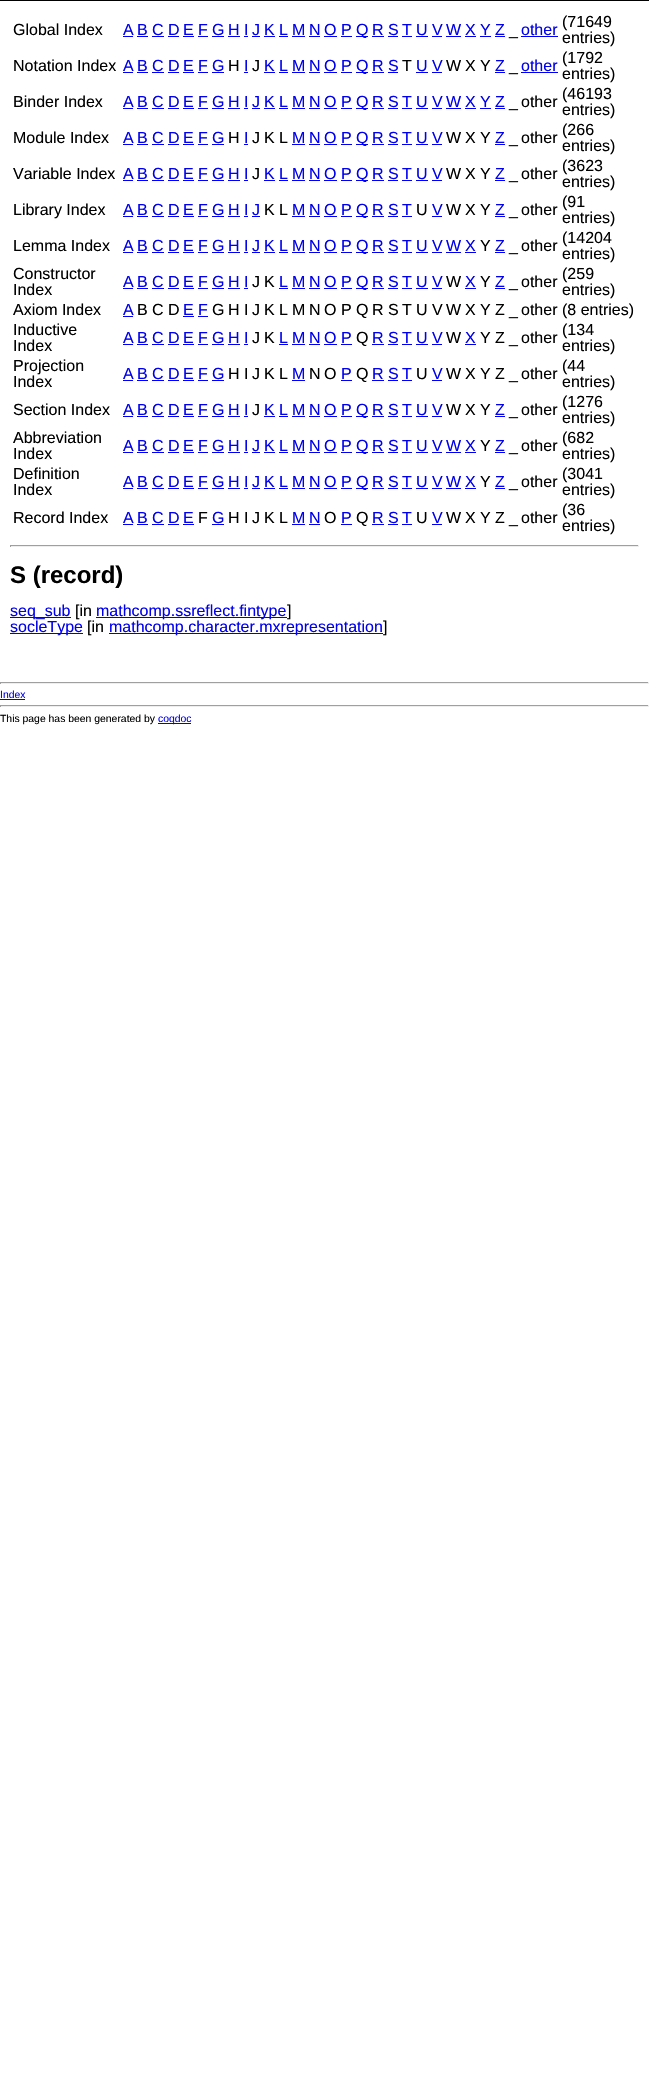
void draw(SkCanvas* canvas) {
	SkPaint paint;
	paint.setAntiAlias(true);
	canvas->clear(0xffffffff);
	paint.setColor(0xff000000);
	canvas->drawRect(SkRect::MakeXYWH(0, 0, 649, 1), paint);
	SkFont f1(fontMgr->matchFamilyStyle("Liberation Sans", SkFontStyle::Normal()), 16);
	f1.setSubpixel(true);
	canvas->drawString("Global Index", 13, 35, f1, paint);
	paint.setColor(0xff0000ee);
	canvas->drawString("A", 123, 35, f1, paint);
	canvas->drawRect(SkRect::MakeXYWH(123, 36, 10, 1), paint);
	canvas->drawString("B", 137, 35, f1, paint);
	canvas->drawRect(SkRect::MakeXYWH(137, 36, 11, 1), paint);
	canvas->drawString("C", 152, 35, f1, paint);
	canvas->drawRect(SkRect::MakeXYWH(152, 36, 12, 1), paint);
	canvas->drawString("D", 168, 35, f1, paint);
	canvas->drawRect(SkRect::MakeXYWH(168, 36, 11, 1), paint);
	canvas->drawString("E", 183, 35, f1, paint);
	canvas->drawRect(SkRect::MakeXYWH(183, 36, 11, 1), paint);
	canvas->drawString("F", 198, 35, f1, paint);
	canvas->drawRect(SkRect::MakeXYWH(198, 36, 10, 1), paint);
	canvas->drawString("G", 212, 35, f1, paint);
	canvas->drawRect(SkRect::MakeXYWH(212, 36, 12, 1), paint);
	canvas->drawString("H", 228, 35, f1, paint);
	canvas->drawRect(SkRect::MakeXYWH(228, 36, 12, 1), paint);
	canvas->drawString("I", 244, 35, f1, paint);
	canvas->drawRect(SkRect::MakeXYWH(244, 36, 4, 1), paint);
	canvas->drawString("J", 252, 35, f1, paint);
	canvas->drawRect(SkRect::MakeXYWH(252, 36, 8, 1), paint);
	canvas->drawString("K", 264, 35, f1, paint);
	canvas->drawRect(SkRect::MakeXYWH(264, 36, 11, 1), paint);
	canvas->drawString("L", 279, 35, f1, paint);
	canvas->drawRect(SkRect::MakeXYWH(279, 36, 9, 1), paint);
	canvas->drawString("M", 292, 35, f1, paint);
	canvas->drawRect(SkRect::MakeXYWH(292, 36, 13, 1), paint);
	canvas->drawString("N", 309, 35, f1, paint);
	canvas->drawRect(SkRect::MakeXYWH(309, 36, 11, 1), paint);
	canvas->drawString("O", 324, 35, f1, paint);
	canvas->drawRect(SkRect::MakeXYWH(324, 36, 13, 1), paint);
	canvas->drawString("P", 341, 35, f1, paint);
	canvas->drawRect(SkRect::MakeXYWH(341, 36, 11, 1), paint);
	canvas->drawRect(SkRect::MakeXYWH(356, 36, 12, 1), paint);
	canvas->drawString("Q", 356, 35, f1, paint);
	canvas->drawString("R", 372, 35, f1, paint);
	canvas->drawRect(SkRect::MakeXYWH(372, 36, 12, 1), paint);
	canvas->drawString("S", 388, 35, f1, paint);
	canvas->drawRect(SkRect::MakeXYWH(388, 36, 10, 1), paint);
	canvas->drawString("T", 402, 35, f1, paint);
	canvas->drawRect(SkRect::MakeXYWH(402, 36, 10, 1), paint);
	canvas->drawString("U", 416, 35, f1, paint);
	canvas->drawRect(SkRect::MakeXYWH(416, 36, 12, 1), paint);
	canvas->drawString("V", 432, 35, f1, paint);
	canvas->drawRect(SkRect::MakeXYWH(432, 36, 10, 1), paint);
	canvas->drawString("W", 446, 35, f1, paint);
	canvas->drawRect(SkRect::MakeXYWH(446, 36, 15, 1), paint);
	canvas->drawString("X", 465, 35, f1, paint);
	canvas->drawRect(SkRect::MakeXYWH(465, 36, 11, 1), paint);
	canvas->drawString("Y", 480, 35, f1, paint);
	canvas->drawRect(SkRect::MakeXYWH(480, 36, 11, 1), paint);
	canvas->drawString("Z", 495, 35, f1, paint);
	canvas->drawRect(SkRect::MakeXYWH(495, 36, 10, 1), paint);
	canvas->drawString("other", 521, 35, f1, paint);
	canvas->drawRect(SkRect::MakeXYWH(521, 36, 37, 1), paint);
	paint.setColor(0xff000000);
	canvas->drawString("(71649", 562, 27, f1, paint);
	canvas->drawString("entries)", 562, 43, f1, paint);
	canvas->drawString("_", 509, 35, f1, paint);
	canvas->drawString("Notation Index", 13, 71, f1, paint);
	paint.setColor(0xff0000ee);
	canvas->drawString("A", 123, 71, f1, paint);
	canvas->drawRect(SkRect::MakeXYWH(123, 72, 10, 1), paint);
	canvas->drawString("B", 137, 71, f1, paint);
	canvas->drawRect(SkRect::MakeXYWH(137, 72, 11, 1), paint);
	canvas->drawString("C", 152, 71, f1, paint);
	canvas->drawRect(SkRect::MakeXYWH(152, 72, 12, 1), paint);
	canvas->drawString("D", 168, 71, f1, paint);
	canvas->drawRect(SkRect::MakeXYWH(168, 72, 11, 1), paint);
	canvas->drawString("E", 183, 71, f1, paint);
	canvas->drawRect(SkRect::MakeXYWH(183, 72, 11, 1), paint);
	canvas->drawString("F", 198, 71, f1, paint);
	canvas->drawRect(SkRect::MakeXYWH(198, 72, 10, 1), paint);
	canvas->drawString("G", 212, 71, f1, paint);
	canvas->drawRect(SkRect::MakeXYWH(212, 72, 12, 1), paint);
	paint.setColor(0xff000000);
	canvas->drawString("H", 228, 71, f1, paint);
	paint.setColor(0xff0000ee);
	canvas->drawString("I", 244, 71, f1, paint);
	canvas->drawRect(SkRect::MakeXYWH(244, 72, 4, 1), paint);
	paint.setColor(0xff000000);
	canvas->drawString("J", 252, 71, f1, paint);
	paint.setColor(0xff0000ee);
	canvas->drawString("K", 264, 71, f1, paint);
	canvas->drawRect(SkRect::MakeXYWH(264, 72, 11, 1), paint);
	canvas->drawString("L", 279, 71, f1, paint);
	canvas->drawRect(SkRect::MakeXYWH(279, 72, 9, 1), paint);
	canvas->drawString("M", 292, 71, f1, paint);
	canvas->drawRect(SkRect::MakeXYWH(292, 72, 13, 1), paint);
	canvas->drawString("N", 309, 71, f1, paint);
	canvas->drawRect(SkRect::MakeXYWH(309, 72, 11, 1), paint);
	canvas->drawString("O", 324, 71, f1, paint);
	canvas->drawRect(SkRect::MakeXYWH(324, 72, 13, 1), paint);
	canvas->drawString("P", 341, 71, f1, paint);
	canvas->drawRect(SkRect::MakeXYWH(341, 72, 11, 1), paint);
	canvas->drawRect(SkRect::MakeXYWH(356, 72, 12, 1), paint);
	canvas->drawString("Q", 356, 71, f1, paint);
	canvas->drawString("R", 372, 71, f1, paint);
	canvas->drawRect(SkRect::MakeXYWH(372, 72, 12, 1), paint);
	canvas->drawString("S", 388, 71, f1, paint);
	canvas->drawRect(SkRect::MakeXYWH(388, 72, 10, 1), paint);
	paint.setColor(0xff000000);
	canvas->drawString("T", 402, 71, f1, paint);
	paint.setColor(0xff0000ee);
	canvas->drawString("U", 416, 71, f1, paint);
	canvas->drawRect(SkRect::MakeXYWH(416, 72, 12, 1), paint);
	canvas->drawString("V", 432, 71, f1, paint);
	canvas->drawRect(SkRect::MakeXYWH(432, 72, 10, 1), paint);
	paint.setColor(0xff000000);
	canvas->drawString("W", 446, 71, f1, paint);
	canvas->drawString("X", 465, 71, f1, paint);
	canvas->drawString("Y", 480, 71, f1, paint);
	paint.setColor(0xff0000ee);
	canvas->drawString("Z", 495, 71, f1, paint);
	canvas->drawRect(SkRect::MakeXYWH(495, 72, 10, 1), paint);
	canvas->drawString("other", 521, 71, f1, paint);
	canvas->drawRect(SkRect::MakeXYWH(521, 72, 37, 1), paint);
	paint.setColor(0xff000000);
	canvas->drawString("(1792", 562, 63, f1, paint);
	canvas->drawString("entries)", 562, 79, f1, paint);
	canvas->drawString("_", 509, 71, f1, paint);
	canvas->drawString("Binder Index", 13, 107, f1, paint);
	paint.setColor(0xff0000ee);
	canvas->drawString("A", 123, 107, f1, paint);
	canvas->drawRect(SkRect::MakeXYWH(123, 108, 10, 1), paint);
	canvas->drawString("B", 137, 107, f1, paint);
	canvas->drawRect(SkRect::MakeXYWH(137, 108, 11, 1), paint);
	canvas->drawString("C", 152, 107, f1, paint);
	canvas->drawRect(SkRect::MakeXYWH(152, 108, 12, 1), paint);
	canvas->drawString("D", 168, 107, f1, paint);
	canvas->drawRect(SkRect::MakeXYWH(168, 108, 11, 1), paint);
	canvas->drawString("E", 183, 107, f1, paint);
	canvas->drawRect(SkRect::MakeXYWH(183, 108, 11, 1), paint);
	canvas->drawString("F", 198, 107, f1, paint);
	canvas->drawRect(SkRect::MakeXYWH(198, 108, 10, 1), paint);
	canvas->drawString("G", 212, 107, f1, paint);
	canvas->drawRect(SkRect::MakeXYWH(212, 108, 12, 1), paint);
	canvas->drawString("H", 228, 107, f1, paint);
	canvas->drawRect(SkRect::MakeXYWH(228, 108, 12, 1), paint);
	canvas->drawString("I", 244, 107, f1, paint);
	canvas->drawRect(SkRect::MakeXYWH(244, 108, 4, 1), paint);
	canvas->drawString("J", 252, 107, f1, paint);
	canvas->drawRect(SkRect::MakeXYWH(252, 108, 8, 1), paint);
	canvas->drawString("K", 264, 107, f1, paint);
	canvas->drawRect(SkRect::MakeXYWH(264, 108, 11, 1), paint);
	canvas->drawString("L", 279, 107, f1, paint);
	canvas->drawRect(SkRect::MakeXYWH(279, 108, 9, 1), paint);
	canvas->drawString("M", 292, 107, f1, paint);
	canvas->drawRect(SkRect::MakeXYWH(292, 108, 13, 1), paint);
	canvas->drawString("N", 309, 107, f1, paint);
	canvas->drawRect(SkRect::MakeXYWH(309, 108, 11, 1), paint);
	canvas->drawString("O", 324, 107, f1, paint);
	canvas->drawRect(SkRect::MakeXYWH(324, 108, 13, 1), paint);
	canvas->drawString("P", 341, 107, f1, paint);
	canvas->drawRect(SkRect::MakeXYWH(341, 108, 11, 1), paint);
	canvas->drawRect(SkRect::MakeXYWH(356, 108, 12, 1), paint);
	canvas->drawString("Q", 356, 107, f1, paint);
	canvas->drawString("R", 372, 107, f1, paint);
	canvas->drawRect(SkRect::MakeXYWH(372, 108, 12, 1), paint);
	canvas->drawString("S", 388, 107, f1, paint);
	canvas->drawRect(SkRect::MakeXYWH(388, 108, 10, 1), paint);
	canvas->drawString("T", 402, 107, f1, paint);
	canvas->drawRect(SkRect::MakeXYWH(402, 108, 10, 1), paint);
	canvas->drawString("U", 416, 107, f1, paint);
	canvas->drawRect(SkRect::MakeXYWH(416, 108, 12, 1), paint);
	canvas->drawString("V", 432, 107, f1, paint);
	canvas->drawRect(SkRect::MakeXYWH(432, 108, 10, 1), paint);
	canvas->drawString("W", 446, 107, f1, paint);
	canvas->drawRect(SkRect::MakeXYWH(446, 108, 15, 1), paint);
	canvas->drawString("X", 465, 107, f1, paint);
	canvas->drawRect(SkRect::MakeXYWH(465, 108, 11, 1), paint);
	canvas->drawString("Y", 480, 107, f1, paint);
	canvas->drawRect(SkRect::MakeXYWH(480, 108, 11, 1), paint);
	canvas->drawString("Z", 495, 107, f1, paint);
	canvas->drawRect(SkRect::MakeXYWH(495, 108, 10, 1), paint);
	paint.setColor(0xff000000);
	canvas->drawString("other", 521, 107, f1, paint);
	canvas->drawString("(46193", 562, 99, f1, paint);
	canvas->drawString("entries)", 562, 115, f1, paint);
	canvas->drawString("_", 509, 107, f1, paint);
	canvas->drawString("Module Index", 13, 143, f1, paint);
	paint.setColor(0xff0000ee);
	canvas->drawString("A", 123, 143, f1, paint);
	canvas->drawRect(SkRect::MakeXYWH(123, 144, 10, 1), paint);
	canvas->drawString("B", 137, 143, f1, paint);
	canvas->drawRect(SkRect::MakeXYWH(137, 144, 11, 1), paint);
	canvas->drawString("C", 152, 143, f1, paint);
	canvas->drawRect(SkRect::MakeXYWH(152, 144, 12, 1), paint);
	canvas->drawString("D", 168, 143, f1, paint);
	canvas->drawRect(SkRect::MakeXYWH(168, 144, 11, 1), paint);
	canvas->drawString("E", 183, 143, f1, paint);
	canvas->drawRect(SkRect::MakeXYWH(183, 144, 11, 1), paint);
	canvas->drawString("F", 198, 143, f1, paint);
	canvas->drawRect(SkRect::MakeXYWH(198, 144, 10, 1), paint);
	canvas->drawString("G", 212, 143, f1, paint);
	canvas->drawRect(SkRect::MakeXYWH(212, 144, 12, 1), paint);
	paint.setColor(0xff000000);
	canvas->drawString("H", 228, 143, f1, paint);
	paint.setColor(0xff0000ee);
	canvas->drawString("I", 244, 143, f1, paint);
	canvas->drawRect(SkRect::MakeXYWH(244, 144, 4, 1), paint);
	paint.setColor(0xff000000);
	canvas->drawString("J", 252, 143, f1, paint);
	canvas->drawString("K", 264, 143, f1, paint);
	canvas->drawString("L", 279, 143, f1, paint);
	paint.setColor(0xff0000ee);
	canvas->drawString("M", 292, 143, f1, paint);
	canvas->drawRect(SkRect::MakeXYWH(292, 144, 13, 1), paint);
	canvas->drawString("N", 309, 143, f1, paint);
	canvas->drawRect(SkRect::MakeXYWH(309, 144, 11, 1), paint);
	canvas->drawString("O", 324, 143, f1, paint);
	canvas->drawRect(SkRect::MakeXYWH(324, 144, 13, 1), paint);
	canvas->drawString("P", 341, 143, f1, paint);
	canvas->drawRect(SkRect::MakeXYWH(341, 144, 11, 1), paint);
	canvas->drawRect(SkRect::MakeXYWH(356, 144, 12, 1), paint);
	canvas->drawString("Q", 356, 143, f1, paint);
	canvas->drawString("R", 372, 143, f1, paint);
	canvas->drawRect(SkRect::MakeXYWH(372, 144, 12, 1), paint);
	canvas->drawString("S", 388, 143, f1, paint);
	canvas->drawRect(SkRect::MakeXYWH(388, 144, 10, 1), paint);
	canvas->drawString("T", 402, 143, f1, paint);
	canvas->drawRect(SkRect::MakeXYWH(402, 144, 10, 1), paint);
	canvas->drawString("U", 416, 143, f1, paint);
	canvas->drawRect(SkRect::MakeXYWH(416, 144, 12, 1), paint);
	canvas->drawString("V", 432, 143, f1, paint);
	canvas->drawRect(SkRect::MakeXYWH(432, 144, 10, 1), paint);
	paint.setColor(0xff000000);
	canvas->drawString("W", 446, 143, f1, paint);
	canvas->drawString("X", 465, 143, f1, paint);
	canvas->drawString("Y", 480, 143, f1, paint);
	paint.setColor(0xff0000ee);
	canvas->drawString("Z", 495, 143, f1, paint);
	canvas->drawRect(SkRect::MakeXYWH(495, 144, 10, 1), paint);
	paint.setColor(0xff000000);
	canvas->drawString("other", 521, 143, f1, paint);
	canvas->drawString("(266", 562, 135, f1, paint);
	canvas->drawString("entries)", 562, 151, f1, paint);
	canvas->drawString("_", 509, 143, f1, paint);
	canvas->drawString("Variable Index", 13, 179, f1, paint);
	paint.setColor(0xff0000ee);
	canvas->drawString("A", 123, 179, f1, paint);
	canvas->drawRect(SkRect::MakeXYWH(123, 180, 10, 1), paint);
	canvas->drawString("B", 137, 179, f1, paint);
	canvas->drawRect(SkRect::MakeXYWH(137, 180, 11, 1), paint);
	canvas->drawString("C", 152, 179, f1, paint);
	canvas->drawRect(SkRect::MakeXYWH(152, 180, 12, 1), paint);
	canvas->drawString("D", 168, 179, f1, paint);
	canvas->drawRect(SkRect::MakeXYWH(168, 180, 11, 1), paint);
	canvas->drawString("E", 183, 179, f1, paint);
	canvas->drawRect(SkRect::MakeXYWH(183, 180, 11, 1), paint);
	canvas->drawString("F", 198, 179, f1, paint);
	canvas->drawRect(SkRect::MakeXYWH(198, 180, 10, 1), paint);
	canvas->drawString("G", 212, 179, f1, paint);
	canvas->drawRect(SkRect::MakeXYWH(212, 180, 12, 1), paint);
	canvas->drawString("H", 228, 179, f1, paint);
	canvas->drawRect(SkRect::MakeXYWH(228, 180, 12, 1), paint);
	canvas->drawString("I", 244, 179, f1, paint);
	canvas->drawRect(SkRect::MakeXYWH(244, 180, 4, 1), paint);
	paint.setColor(0xff000000);
	canvas->drawString("J", 252, 179, f1, paint);
	paint.setColor(0xff0000ee);
	canvas->drawString("K", 264, 179, f1, paint);
	canvas->drawRect(SkRect::MakeXYWH(264, 180, 11, 1), paint);
	canvas->drawString("L", 279, 179, f1, paint);
	canvas->drawRect(SkRect::MakeXYWH(279, 180, 9, 1), paint);
	canvas->drawString("M", 292, 179, f1, paint);
	canvas->drawRect(SkRect::MakeXYWH(292, 180, 13, 1), paint);
	canvas->drawString("N", 309, 179, f1, paint);
	canvas->drawRect(SkRect::MakeXYWH(309, 180, 11, 1), paint);
	canvas->drawString("O", 324, 179, f1, paint);
	canvas->drawRect(SkRect::MakeXYWH(324, 180, 13, 1), paint);
	canvas->drawString("P", 341, 179, f1, paint);
	canvas->drawRect(SkRect::MakeXYWH(341, 180, 11, 1), paint);
	canvas->drawRect(SkRect::MakeXYWH(356, 180, 12, 1), paint);
	canvas->drawString("Q", 356, 179, f1, paint);
	canvas->drawString("R", 372, 179, f1, paint);
	canvas->drawRect(SkRect::MakeXYWH(372, 180, 12, 1), paint);
	canvas->drawString("S", 388, 179, f1, paint);
	canvas->drawRect(SkRect::MakeXYWH(388, 180, 10, 1), paint);
	canvas->drawString("T", 402, 179, f1, paint);
	canvas->drawRect(SkRect::MakeXYWH(402, 180, 10, 1), paint);
	canvas->drawString("U", 416, 179, f1, paint);
	canvas->drawRect(SkRect::MakeXYWH(416, 180, 12, 1), paint);
	canvas->drawString("V", 432, 179, f1, paint);
	canvas->drawRect(SkRect::MakeXYWH(432, 180, 10, 1), paint);
	paint.setColor(0xff000000);
	canvas->drawString("W", 446, 179, f1, paint);
	canvas->drawString("X", 465, 179, f1, paint);
	canvas->drawString("Y", 480, 179, f1, paint);
	paint.setColor(0xff0000ee);
	canvas->drawString("Z", 495, 179, f1, paint);
	canvas->drawRect(SkRect::MakeXYWH(495, 180, 10, 1), paint);
	paint.setColor(0xff000000);
	canvas->drawString("other", 521, 179, f1, paint);
	canvas->drawString("(3623", 562, 171, f1, paint);
	canvas->drawString("entries)", 562, 187, f1, paint);
	canvas->drawString("_", 509, 179, f1, paint);
	canvas->drawString("Library Index", 13, 215, f1, paint);
	paint.setColor(0xff0000ee);
	canvas->drawString("A", 123, 215, f1, paint);
	canvas->drawRect(SkRect::MakeXYWH(123, 216, 10, 1), paint);
	canvas->drawString("B", 137, 215, f1, paint);
	canvas->drawRect(SkRect::MakeXYWH(137, 216, 11, 1), paint);
	canvas->drawString("C", 152, 215, f1, paint);
	canvas->drawRect(SkRect::MakeXYWH(152, 216, 12, 1), paint);
	canvas->drawString("D", 168, 215, f1, paint);
	canvas->drawRect(SkRect::MakeXYWH(168, 216, 11, 1), paint);
	canvas->drawString("E", 183, 215, f1, paint);
	canvas->drawRect(SkRect::MakeXYWH(183, 216, 11, 1), paint);
	canvas->drawString("F", 198, 215, f1, paint);
	canvas->drawRect(SkRect::MakeXYWH(198, 216, 10, 1), paint);
	canvas->drawString("G", 212, 215, f1, paint);
	canvas->drawRect(SkRect::MakeXYWH(212, 216, 12, 1), paint);
	canvas->drawString("H", 228, 215, f1, paint);
	canvas->drawRect(SkRect::MakeXYWH(228, 216, 12, 1), paint);
	canvas->drawString("I", 244, 215, f1, paint);
	canvas->drawRect(SkRect::MakeXYWH(244, 216, 4, 1), paint);
	canvas->drawString("J", 252, 215, f1, paint);
	canvas->drawRect(SkRect::MakeXYWH(252, 216, 8, 1), paint);
	paint.setColor(0xff000000);
	canvas->drawString("K", 264, 215, f1, paint);
	canvas->drawString("L", 279, 215, f1, paint);
	paint.setColor(0xff0000ee);
	canvas->drawString("M", 292, 215, f1, paint);
	canvas->drawRect(SkRect::MakeXYWH(292, 216, 13, 1), paint);
	canvas->drawString("N", 309, 215, f1, paint);
	canvas->drawRect(SkRect::MakeXYWH(309, 216, 11, 1), paint);
	canvas->drawString("O", 324, 215, f1, paint);
	canvas->drawRect(SkRect::MakeXYWH(324, 216, 13, 1), paint);
	canvas->drawString("P", 341, 215, f1, paint);
	canvas->drawRect(SkRect::MakeXYWH(341, 216, 11, 1), paint);
	canvas->drawRect(SkRect::MakeXYWH(356, 216, 12, 1), paint);
	canvas->drawString("Q", 356, 215, f1, paint);
	canvas->drawString("R", 372, 215, f1, paint);
	canvas->drawRect(SkRect::MakeXYWH(372, 216, 12, 1), paint);
	canvas->drawString("S", 388, 215, f1, paint);
	canvas->drawRect(SkRect::MakeXYWH(388, 216, 10, 1), paint);
	canvas->drawString("T", 402, 215, f1, paint);
	canvas->drawRect(SkRect::MakeXYWH(402, 216, 10, 1), paint);
	paint.setColor(0xff000000);
	canvas->drawString("U", 416, 215, f1, paint);
	paint.setColor(0xff0000ee);
	canvas->drawString("V", 432, 215, f1, paint);
	canvas->drawRect(SkRect::MakeXYWH(432, 216, 10, 1), paint);
	paint.setColor(0xff000000);
	canvas->drawString("W", 446, 215, f1, paint);
	canvas->drawString("X", 465, 215, f1, paint);
	canvas->drawString("Y", 480, 215, f1, paint);
	paint.setColor(0xff0000ee);
	canvas->drawString("Z", 495, 215, f1, paint);
	canvas->drawRect(SkRect::MakeXYWH(495, 216, 10, 1), paint);
	paint.setColor(0xff000000);
	canvas->drawString("other", 521, 215, f1, paint);
	canvas->drawString("(91", 562, 207, f1, paint);
	canvas->drawString("entries)", 562, 223, f1, paint);
	canvas->drawString("_", 509, 215, f1, paint);
	canvas->drawString("Lemma Index", 13, 251, f1, paint);
	paint.setColor(0xff0000ee);
	canvas->drawString("A", 123, 251, f1, paint);
	canvas->drawRect(SkRect::MakeXYWH(123, 252, 10, 1), paint);
	canvas->drawString("B", 137, 251, f1, paint);
	canvas->drawRect(SkRect::MakeXYWH(137, 252, 11, 1), paint);
	canvas->drawString("C", 152, 251, f1, paint);
	canvas->drawRect(SkRect::MakeXYWH(152, 252, 12, 1), paint);
	canvas->drawString("D", 168, 251, f1, paint);
	canvas->drawRect(SkRect::MakeXYWH(168, 252, 11, 1), paint);
	canvas->drawString("E", 183, 251, f1, paint);
	canvas->drawRect(SkRect::MakeXYWH(183, 252, 11, 1), paint);
	canvas->drawString("F", 198, 251, f1, paint);
	canvas->drawRect(SkRect::MakeXYWH(198, 252, 10, 1), paint);
	canvas->drawString("G", 212, 251, f1, paint);
	canvas->drawRect(SkRect::MakeXYWH(212, 252, 12, 1), paint);
	canvas->drawString("H", 228, 251, f1, paint);
	canvas->drawRect(SkRect::MakeXYWH(228, 252, 12, 1), paint);
	canvas->drawString("I", 244, 251, f1, paint);
	canvas->drawRect(SkRect::MakeXYWH(244, 252, 4, 1), paint);
	canvas->drawString("J", 252, 251, f1, paint);
	canvas->drawRect(SkRect::MakeXYWH(252, 252, 8, 1), paint);
	canvas->drawString("K", 264, 251, f1, paint);
	canvas->drawRect(SkRect::MakeXYWH(264, 252, 11, 1), paint);
	canvas->drawString("L", 279, 251, f1, paint);
	canvas->drawRect(SkRect::MakeXYWH(279, 252, 9, 1), paint);
	canvas->drawString("M", 292, 251, f1, paint);
	canvas->drawRect(SkRect::MakeXYWH(292, 252, 13, 1), paint);
	canvas->drawString("N", 309, 251, f1, paint);
	canvas->drawRect(SkRect::MakeXYWH(309, 252, 11, 1), paint);
	canvas->drawString("O", 324, 251, f1, paint);
	canvas->drawRect(SkRect::MakeXYWH(324, 252, 13, 1), paint);
	canvas->drawString("P", 341, 251, f1, paint);
	canvas->drawRect(SkRect::MakeXYWH(341, 252, 11, 1), paint);
	canvas->drawRect(SkRect::MakeXYWH(356, 252, 12, 1), paint);
	canvas->drawString("Q", 356, 251, f1, paint);
	canvas->drawString("R", 372, 251, f1, paint);
	canvas->drawRect(SkRect::MakeXYWH(372, 252, 12, 1), paint);
	canvas->drawString("S", 388, 251, f1, paint);
	canvas->drawRect(SkRect::MakeXYWH(388, 252, 10, 1), paint);
	canvas->drawString("T", 402, 251, f1, paint);
	canvas->drawRect(SkRect::MakeXYWH(402, 252, 10, 1), paint);
	canvas->drawString("U", 416, 251, f1, paint);
	canvas->drawRect(SkRect::MakeXYWH(416, 252, 12, 1), paint);
	canvas->drawString("V", 432, 251, f1, paint);
	canvas->drawRect(SkRect::MakeXYWH(432, 252, 10, 1), paint);
	canvas->drawString("W", 446, 251, f1, paint);
	canvas->drawRect(SkRect::MakeXYWH(446, 252, 15, 1), paint);
	canvas->drawString("X", 465, 251, f1, paint);
	canvas->drawRect(SkRect::MakeXYWH(465, 252, 11, 1), paint);
	paint.setColor(0xff000000);
	canvas->drawString("Y", 480, 251, f1, paint);
	paint.setColor(0xff0000ee);
	canvas->drawString("Z", 495, 251, f1, paint);
	canvas->drawRect(SkRect::MakeXYWH(495, 252, 10, 1), paint);
	paint.setColor(0xff000000);
	canvas->drawString("other", 521, 251, f1, paint);
	canvas->drawString("(14204", 562, 243, f1, paint);
	canvas->drawString("entries)", 562, 259, f1, paint);
	canvas->drawString("_", 509, 251, f1, paint);
	canvas->drawString("Constructor", 13, 279, f1, paint);
	canvas->drawString("Index", 13, 295, f1, paint);
	paint.setColor(0xff0000ee);
	canvas->drawString("A", 123, 287, f1, paint);
	canvas->drawRect(SkRect::MakeXYWH(123, 288, 10, 1), paint);
	canvas->drawString("B", 137, 287, f1, paint);
	canvas->drawRect(SkRect::MakeXYWH(137, 288, 11, 1), paint);
	canvas->drawString("C", 152, 287, f1, paint);
	canvas->drawRect(SkRect::MakeXYWH(152, 288, 12, 1), paint);
	canvas->drawString("D", 168, 287, f1, paint);
	canvas->drawRect(SkRect::MakeXYWH(168, 288, 11, 1), paint);
	canvas->drawString("E", 183, 287, f1, paint);
	canvas->drawRect(SkRect::MakeXYWH(183, 288, 11, 1), paint);
	canvas->drawString("F", 198, 287, f1, paint);
	canvas->drawRect(SkRect::MakeXYWH(198, 288, 10, 1), paint);
	canvas->drawString("G", 212, 287, f1, paint);
	canvas->drawRect(SkRect::MakeXYWH(212, 288, 12, 1), paint);
	canvas->drawString("H", 228, 287, f1, paint);
	canvas->drawRect(SkRect::MakeXYWH(228, 288, 12, 1), paint);
	canvas->drawString("I", 244, 287, f1, paint);
	canvas->drawRect(SkRect::MakeXYWH(244, 288, 4, 1), paint);
	paint.setColor(0xff000000);
	canvas->drawString("J", 252, 287, f1, paint);
	canvas->drawString("K", 264, 287, f1, paint);
	paint.setColor(0xff0000ee);
	canvas->drawString("L", 279, 287, f1, paint);
	canvas->drawRect(SkRect::MakeXYWH(279, 288, 9, 1), paint);
	canvas->drawString("M", 292, 287, f1, paint);
	canvas->drawRect(SkRect::MakeXYWH(292, 288, 13, 1), paint);
	canvas->drawString("N", 309, 287, f1, paint);
	canvas->drawRect(SkRect::MakeXYWH(309, 288, 11, 1), paint);
	canvas->drawString("O", 324, 287, f1, paint);
	canvas->drawRect(SkRect::MakeXYWH(324, 288, 13, 1), paint);
	canvas->drawString("P", 341, 287, f1, paint);
	canvas->drawRect(SkRect::MakeXYWH(341, 288, 11, 1), paint);
	canvas->drawRect(SkRect::MakeXYWH(356, 288, 12, 1), paint);
	canvas->drawString("Q", 356, 287, f1, paint);
	canvas->drawString("R", 372, 287, f1, paint);
	canvas->drawRect(SkRect::MakeXYWH(372, 288, 12, 1), paint);
	canvas->drawString("S", 388, 287, f1, paint);
	canvas->drawRect(SkRect::MakeXYWH(388, 288, 10, 1), paint);
	canvas->drawString("T", 402, 287, f1, paint);
	canvas->drawRect(SkRect::MakeXYWH(402, 288, 10, 1), paint);
	canvas->drawString("U", 416, 287, f1, paint);
	canvas->drawRect(SkRect::MakeXYWH(416, 288, 12, 1), paint);
	canvas->drawString("V", 432, 287, f1, paint);
	canvas->drawRect(SkRect::MakeXYWH(432, 288, 10, 1), paint);
	paint.setColor(0xff000000);
	canvas->drawString("W", 446, 287, f1, paint);
	paint.setColor(0xff0000ee);
	canvas->drawString("X", 465, 287, f1, paint);
	canvas->drawRect(SkRect::MakeXYWH(465, 288, 11, 1), paint);
	paint.setColor(0xff000000);
	canvas->drawString("Y", 480, 287, f1, paint);
	paint.setColor(0xff0000ee);
	canvas->drawString("Z", 495, 287, f1, paint);
	canvas->drawRect(SkRect::MakeXYWH(495, 288, 10, 1), paint);
	paint.setColor(0xff000000);
	canvas->drawString("other", 521, 287, f1, paint);
	canvas->drawString("(259", 562, 279, f1, paint);
	canvas->drawString("entries)", 562, 295, f1, paint);
	canvas->drawString("_", 509, 287, f1, paint);
	canvas->drawString("Axiom Index", 13, 315, f1, paint);
	paint.setColor(0xff0000ee);
	canvas->drawString("A", 123, 315, f1, paint);
	canvas->drawRect(SkRect::MakeXYWH(123, 316, 10, 1), paint);
	paint.setColor(0xff000000);
	canvas->drawString("B", 137, 315, f1, paint);
	canvas->drawString("C", 152, 315, f1, paint);
	canvas->drawString("D", 168, 315, f1, paint);
	paint.setColor(0xff0000ee);
	canvas->drawString("E", 183, 315, f1, paint);
	canvas->drawRect(SkRect::MakeXYWH(183, 316, 11, 1), paint);
	canvas->drawString("F", 198, 315, f1, paint);
	canvas->drawRect(SkRect::MakeXYWH(198, 316, 10, 1), paint);
	paint.setColor(0xff000000);
	canvas->drawString("G", 212, 315, f1, paint);
	canvas->drawString("H", 228, 315, f1, paint);
	canvas->drawString("I", 244, 315, f1, paint);
	canvas->drawString("J", 252, 315, f1, paint);
	canvas->drawString("K", 264, 315, f1, paint);
	canvas->drawString("L", 279, 315, f1, paint);
	canvas->drawString("M", 292, 315, f1, paint);
	canvas->drawString("N", 309, 315, f1, paint);
	canvas->drawString("O", 324, 315, f1, paint);
	canvas->drawString("P", 341, 315, f1, paint);
	canvas->drawString("Q", 356, 315, f1, paint);
	canvas->drawString("R", 372, 315, f1, paint);
	canvas->drawString("S", 388, 315, f1, paint);
	canvas->drawString("T", 402, 315, f1, paint);
	canvas->drawString("U", 416, 315, f1, paint);
	canvas->drawString("V", 432, 315, f1, paint);
	canvas->drawString("W", 446, 315, f1, paint);
	canvas->drawString("X", 465, 315, f1, paint);
	canvas->drawString("Y", 480, 315, f1, paint);
	canvas->drawString("Z", 495, 315, f1, paint);
	canvas->drawString("other", 521, 315, f1, paint);
	canvas->drawString("(8 entries)", 562, 315, f1, paint);
	canvas->drawString("_", 509, 315, f1, paint);
	canvas->drawString("Inductive", 13, 335, f1, paint);
	canvas->drawString("Index", 13, 351, f1, paint);
	paint.setColor(0xff0000ee);
	canvas->drawString("A", 123, 343, f1, paint);
	canvas->drawRect(SkRect::MakeXYWH(123, 344, 10, 1), paint);
	canvas->drawString("B", 137, 343, f1, paint);
	canvas->drawRect(SkRect::MakeXYWH(137, 344, 11, 1), paint);
	canvas->drawString("C", 152, 343, f1, paint);
	canvas->drawRect(SkRect::MakeXYWH(152, 344, 12, 1), paint);
	canvas->drawString("D", 168, 343, f1, paint);
	canvas->drawRect(SkRect::MakeXYWH(168, 344, 11, 1), paint);
	canvas->drawString("E", 183, 343, f1, paint);
	canvas->drawRect(SkRect::MakeXYWH(183, 344, 11, 1), paint);
	canvas->drawString("F", 198, 343, f1, paint);
	canvas->drawRect(SkRect::MakeXYWH(198, 344, 10, 1), paint);
	canvas->drawString("G", 212, 343, f1, paint);
	canvas->drawRect(SkRect::MakeXYWH(212, 344, 12, 1), paint);
	canvas->drawString("H", 228, 343, f1, paint);
	canvas->drawRect(SkRect::MakeXYWH(228, 344, 12, 1), paint);
	canvas->drawString("I", 244, 343, f1, paint);
	canvas->drawRect(SkRect::MakeXYWH(244, 344, 4, 1), paint);
	paint.setColor(0xff000000);
	canvas->drawString("J", 252, 343, f1, paint);
	canvas->drawString("K", 264, 343, f1, paint);
	paint.setColor(0xff0000ee);
	canvas->drawString("L", 279, 343, f1, paint);
	canvas->drawRect(SkRect::MakeXYWH(279, 344, 9, 1), paint);
	canvas->drawString("M", 292, 343, f1, paint);
	canvas->drawRect(SkRect::MakeXYWH(292, 344, 13, 1), paint);
	canvas->drawString("N", 309, 343, f1, paint);
	canvas->drawRect(SkRect::MakeXYWH(309, 344, 11, 1), paint);
	canvas->drawString("O", 324, 343, f1, paint);
	canvas->drawRect(SkRect::MakeXYWH(324, 344, 13, 1), paint);
	canvas->drawString("P", 341, 343, f1, paint);
	canvas->drawRect(SkRect::MakeXYWH(341, 344, 11, 1), paint);
	paint.setColor(0xff000000);
	canvas->drawString("Q", 356, 343, f1, paint);
	paint.setColor(0xff0000ee);
	canvas->drawString("R", 372, 343, f1, paint);
	canvas->drawRect(SkRect::MakeXYWH(372, 344, 12, 1), paint);
	canvas->drawString("S", 388, 343, f1, paint);
	canvas->drawRect(SkRect::MakeXYWH(388, 344, 10, 1), paint);
	canvas->drawString("T", 402, 343, f1, paint);
	canvas->drawRect(SkRect::MakeXYWH(402, 344, 10, 1), paint);
	canvas->drawString("U", 416, 343, f1, paint);
	canvas->drawRect(SkRect::MakeXYWH(416, 344, 12, 1), paint);
	canvas->drawString("V", 432, 343, f1, paint);
	canvas->drawRect(SkRect::MakeXYWH(432, 344, 10, 1), paint);
	paint.setColor(0xff000000);
	canvas->drawString("W", 446, 343, f1, paint);
	paint.setColor(0xff0000ee);
	canvas->drawString("X", 465, 343, f1, paint);
	canvas->drawRect(SkRect::MakeXYWH(465, 344, 11, 1), paint);
	paint.setColor(0xff000000);
	canvas->drawString("Y", 480, 343, f1, paint);
	canvas->drawString("Z", 495, 343, f1, paint);
	canvas->drawString("other", 521, 343, f1, paint);
	canvas->drawString("(134", 562, 335, f1, paint);
	canvas->drawString("entries)", 562, 351, f1, paint);
	canvas->drawString("_", 509, 343, f1, paint);
	canvas->drawString("Projection", 13, 371, f1, paint);
	canvas->drawString("Index", 13, 387, f1, paint);
	paint.setColor(0xff0000ee);
	canvas->drawString("A", 123, 379, f1, paint);
	canvas->drawRect(SkRect::MakeXYWH(123, 380, 10, 1), paint);
	canvas->drawString("B", 137, 379, f1, paint);
	canvas->drawRect(SkRect::MakeXYWH(137, 380, 11, 1), paint);
	canvas->drawString("C", 152, 379, f1, paint);
	canvas->drawRect(SkRect::MakeXYWH(152, 380, 12, 1), paint);
	canvas->drawString("D", 168, 379, f1, paint);
	canvas->drawRect(SkRect::MakeXYWH(168, 380, 11, 1), paint);
	canvas->drawString("E", 183, 379, f1, paint);
	canvas->drawRect(SkRect::MakeXYWH(183, 380, 11, 1), paint);
	canvas->drawString("F", 198, 379, f1, paint);
	canvas->drawRect(SkRect::MakeXYWH(198, 380, 10, 1), paint);
	canvas->drawString("G", 212, 379, f1, paint);
	canvas->drawRect(SkRect::MakeXYWH(212, 380, 12, 1), paint);
	paint.setColor(0xff000000);
	canvas->drawString("H", 228, 379, f1, paint);
	canvas->drawString("I", 244, 379, f1, paint);
	canvas->drawString("J", 252, 379, f1, paint);
	canvas->drawString("K", 264, 379, f1, paint);
	canvas->drawString("L", 279, 379, f1, paint);
	paint.setColor(0xff0000ee);
	canvas->drawString("M", 292, 379, f1, paint);
	canvas->drawRect(SkRect::MakeXYWH(292, 380, 13, 1), paint);
	paint.setColor(0xff000000);
	canvas->drawString("N", 309, 379, f1, paint);
	canvas->drawString("O", 324, 379, f1, paint);
	paint.setColor(0xff0000ee);
	canvas->drawString("P", 341, 379, f1, paint);
	canvas->drawRect(SkRect::MakeXYWH(341, 380, 11, 1), paint);
	paint.setColor(0xff000000);
	canvas->drawString("Q", 356, 379, f1, paint);
	paint.setColor(0xff0000ee);
	canvas->drawString("R", 372, 379, f1, paint);
	canvas->drawRect(SkRect::MakeXYWH(372, 380, 12, 1), paint);
	canvas->drawString("S", 388, 379, f1, paint);
	canvas->drawRect(SkRect::MakeXYWH(388, 380, 10, 1), paint);
	canvas->drawString("T", 402, 379, f1, paint);
	canvas->drawRect(SkRect::MakeXYWH(402, 380, 10, 1), paint);
	paint.setColor(0xff000000);
	canvas->drawString("U", 416, 379, f1, paint);
	paint.setColor(0xff0000ee);
	canvas->drawString("V", 432, 379, f1, paint);
	canvas->drawRect(SkRect::MakeXYWH(432, 380, 10, 1), paint);
	paint.setColor(0xff000000);
	canvas->drawString("W", 446, 379, f1, paint);
	canvas->drawString("X", 465, 379, f1, paint);
	canvas->drawString("Y", 480, 379, f1, paint);
	canvas->drawString("Z", 495, 379, f1, paint);
	canvas->drawString("other", 521, 379, f1, paint);
	canvas->drawString("(44", 562, 371, f1, paint);
	canvas->drawString("entries)", 562, 387, f1, paint);
	canvas->drawString("_", 509, 379, f1, paint);
	canvas->drawString("Section Index", 13, 415, f1, paint);
	paint.setColor(0xff0000ee);
	canvas->drawString("A", 123, 415, f1, paint);
	canvas->drawRect(SkRect::MakeXYWH(123, 416, 10, 1), paint);
	canvas->drawString("B", 137, 415, f1, paint);
	canvas->drawRect(SkRect::MakeXYWH(137, 416, 11, 1), paint);
	canvas->drawString("C", 152, 415, f1, paint);
	canvas->drawRect(SkRect::MakeXYWH(152, 416, 12, 1), paint);
	canvas->drawString("D", 168, 415, f1, paint);
	canvas->drawRect(SkRect::MakeXYWH(168, 416, 11, 1), paint);
	canvas->drawString("E", 183, 415, f1, paint);
	canvas->drawRect(SkRect::MakeXYWH(183, 416, 11, 1), paint);
	canvas->drawString("F", 198, 415, f1, paint);
	canvas->drawRect(SkRect::MakeXYWH(198, 416, 10, 1), paint);
	canvas->drawString("G", 212, 415, f1, paint);
	canvas->drawRect(SkRect::MakeXYWH(212, 416, 12, 1), paint);
	canvas->drawString("H", 228, 415, f1, paint);
	canvas->drawRect(SkRect::MakeXYWH(228, 416, 12, 1), paint);
	canvas->drawString("I", 244, 415, f1, paint);
	canvas->drawRect(SkRect::MakeXYWH(244, 416, 4, 1), paint);
	paint.setColor(0xff000000);
	canvas->drawString("J", 252, 415, f1, paint);
	paint.setColor(0xff0000ee);
	canvas->drawString("K", 264, 415, f1, paint);
	canvas->drawRect(SkRect::MakeXYWH(264, 416, 11, 1), paint);
	canvas->drawString("L", 279, 415, f1, paint);
	canvas->drawRect(SkRect::MakeXYWH(279, 416, 9, 1), paint);
	canvas->drawString("M", 292, 415, f1, paint);
	canvas->drawRect(SkRect::MakeXYWH(292, 416, 13, 1), paint);
	canvas->drawString("N", 309, 415, f1, paint);
	canvas->drawRect(SkRect::MakeXYWH(309, 416, 11, 1), paint);
	canvas->drawString("O", 324, 415, f1, paint);
	canvas->drawRect(SkRect::MakeXYWH(324, 416, 13, 1), paint);
	canvas->drawString("P", 341, 415, f1, paint);
	canvas->drawRect(SkRect::MakeXYWH(341, 416, 11, 1), paint);
	canvas->drawRect(SkRect::MakeXYWH(356, 416, 12, 1), paint);
	canvas->drawString("Q", 356, 415, f1, paint);
	canvas->drawString("R", 372, 415, f1, paint);
	canvas->drawRect(SkRect::MakeXYWH(372, 416, 12, 1), paint);
	canvas->drawString("S", 388, 415, f1, paint);
	canvas->drawRect(SkRect::MakeXYWH(388, 416, 10, 1), paint);
	canvas->drawString("T", 402, 415, f1, paint);
	canvas->drawRect(SkRect::MakeXYWH(402, 416, 10, 1), paint);
	canvas->drawString("U", 416, 415, f1, paint);
	canvas->drawRect(SkRect::MakeXYWH(416, 416, 12, 1), paint);
	canvas->drawString("V", 432, 415, f1, paint);
	canvas->drawRect(SkRect::MakeXYWH(432, 416, 10, 1), paint);
	paint.setColor(0xff000000);
	canvas->drawString("W", 446, 415, f1, paint);
	canvas->drawString("X", 465, 415, f1, paint);
	canvas->drawString("Y", 480, 415, f1, paint);
	paint.setColor(0xff0000ee);
	canvas->drawString("Z", 495, 415, f1, paint);
	canvas->drawRect(SkRect::MakeXYWH(495, 416, 10, 1), paint);
	paint.setColor(0xff000000);
	canvas->drawString("other", 521, 415, f1, paint);
	canvas->drawString("(1276", 562, 407, f1, paint);
	canvas->drawString("entries)", 562, 423, f1, paint);
	canvas->drawString("_", 509, 415, f1, paint);
	canvas->drawString("Abbreviation", 13, 443, f1, paint);
	canvas->drawString("Index", 13, 459, f1, paint);
	paint.setColor(0xff0000ee);
	canvas->drawString("A", 123, 451, f1, paint);
	canvas->drawRect(SkRect::MakeXYWH(123, 452, 10, 1), paint);
	canvas->drawString("B", 137, 451, f1, paint);
	canvas->drawRect(SkRect::MakeXYWH(137, 452, 11, 1), paint);
	canvas->drawString("C", 152, 451, f1, paint);
	canvas->drawRect(SkRect::MakeXYWH(152, 452, 12, 1), paint);
	canvas->drawString("D", 168, 451, f1, paint);
	canvas->drawRect(SkRect::MakeXYWH(168, 452, 11, 1), paint);
	canvas->drawString("E", 183, 451, f1, paint);
	canvas->drawRect(SkRect::MakeXYWH(183, 452, 11, 1), paint);
	canvas->drawString("F", 198, 451, f1, paint);
	canvas->drawRect(SkRect::MakeXYWH(198, 452, 10, 1), paint);
	canvas->drawString("G", 212, 451, f1, paint);
	canvas->drawRect(SkRect::MakeXYWH(212, 452, 12, 1), paint);
	canvas->drawString("H", 228, 451, f1, paint);
	canvas->drawRect(SkRect::MakeXYWH(228, 452, 12, 1), paint);
	canvas->drawString("I", 244, 451, f1, paint);
	canvas->drawRect(SkRect::MakeXYWH(244, 452, 4, 1), paint);
	canvas->drawString("J", 252, 451, f1, paint);
	canvas->drawRect(SkRect::MakeXYWH(252, 452, 8, 1), paint);
	canvas->drawString("K", 264, 451, f1, paint);
	canvas->drawRect(SkRect::MakeXYWH(264, 452, 11, 1), paint);
	canvas->drawString("L", 279, 451, f1, paint);
	canvas->drawRect(SkRect::MakeXYWH(279, 452, 9, 1), paint);
	canvas->drawString("M", 292, 451, f1, paint);
	canvas->drawRect(SkRect::MakeXYWH(292, 452, 13, 1), paint);
	canvas->drawString("N", 309, 451, f1, paint);
	canvas->drawRect(SkRect::MakeXYWH(309, 452, 11, 1), paint);
	canvas->drawString("O", 324, 451, f1, paint);
	canvas->drawRect(SkRect::MakeXYWH(324, 452, 13, 1), paint);
	canvas->drawString("P", 341, 451, f1, paint);
	canvas->drawRect(SkRect::MakeXYWH(341, 452, 11, 1), paint);
	canvas->drawRect(SkRect::MakeXYWH(356, 452, 12, 1), paint);
	canvas->drawString("Q", 356, 451, f1, paint);
	canvas->drawString("R", 372, 451, f1, paint);
	canvas->drawRect(SkRect::MakeXYWH(372, 452, 12, 1), paint);
	canvas->drawString("S", 388, 451, f1, paint);
	canvas->drawRect(SkRect::MakeXYWH(388, 452, 10, 1), paint);
	canvas->drawString("T", 402, 451, f1, paint);
	canvas->drawRect(SkRect::MakeXYWH(402, 452, 10, 1), paint);
	canvas->drawString("U", 416, 451, f1, paint);
	canvas->drawRect(SkRect::MakeXYWH(416, 452, 12, 1), paint);
	canvas->drawString("V", 432, 451, f1, paint);
	canvas->drawRect(SkRect::MakeXYWH(432, 452, 10, 1), paint);
	canvas->drawString("W", 446, 451, f1, paint);
	canvas->drawRect(SkRect::MakeXYWH(446, 452, 15, 1), paint);
	canvas->drawString("X", 465, 451, f1, paint);
	canvas->drawRect(SkRect::MakeXYWH(465, 452, 11, 1), paint);
	paint.setColor(0xff000000);
	canvas->drawString("Y", 480, 451, f1, paint);
	paint.setColor(0xff0000ee);
	canvas->drawString("Z", 495, 451, f1, paint);
	canvas->drawRect(SkRect::MakeXYWH(495, 452, 10, 1), paint);
	paint.setColor(0xff000000);
	canvas->drawString("other", 521, 451, f1, paint);
	canvas->drawString("(682", 562, 443, f1, paint);
	canvas->drawString("entries)", 562, 459, f1, paint);
	canvas->drawString("_", 509, 451, f1, paint);
	canvas->drawString("Definition", 13, 479, f1, paint);
	canvas->drawString("Index", 13, 495, f1, paint);
	paint.setColor(0xff0000ee);
	canvas->drawString("A", 123, 487, f1, paint);
	canvas->drawRect(SkRect::MakeXYWH(123, 488, 10, 1), paint);
	canvas->drawString("B", 137, 487, f1, paint);
	canvas->drawRect(SkRect::MakeXYWH(137, 488, 11, 1), paint);
	canvas->drawString("C", 152, 487, f1, paint);
	canvas->drawRect(SkRect::MakeXYWH(152, 488, 12, 1), paint);
	canvas->drawString("D", 168, 487, f1, paint);
	canvas->drawRect(SkRect::MakeXYWH(168, 488, 11, 1), paint);
	canvas->drawString("E", 183, 487, f1, paint);
	canvas->drawRect(SkRect::MakeXYWH(183, 488, 11, 1), paint);
	canvas->drawString("F", 198, 487, f1, paint);
	canvas->drawRect(SkRect::MakeXYWH(198, 488, 10, 1), paint);
	canvas->drawString("G", 212, 487, f1, paint);
	canvas->drawRect(SkRect::MakeXYWH(212, 488, 12, 1), paint);
	canvas->drawString("H", 228, 487, f1, paint);
	canvas->drawRect(SkRect::MakeXYWH(228, 488, 12, 1), paint);
	canvas->drawString("I", 244, 487, f1, paint);
	canvas->drawRect(SkRect::MakeXYWH(244, 488, 4, 1), paint);
	canvas->drawString("J", 252, 487, f1, paint);
	canvas->drawRect(SkRect::MakeXYWH(252, 488, 8, 1), paint);
	canvas->drawString("K", 264, 487, f1, paint);
	canvas->drawRect(SkRect::MakeXYWH(264, 488, 11, 1), paint);
	canvas->drawString("L", 279, 487, f1, paint);
	canvas->drawRect(SkRect::MakeXYWH(279, 488, 9, 1), paint);
	canvas->drawString("M", 292, 487, f1, paint);
	canvas->drawRect(SkRect::MakeXYWH(292, 488, 13, 1), paint);
	canvas->drawString("N", 309, 487, f1, paint);
	canvas->drawRect(SkRect::MakeXYWH(309, 488, 11, 1), paint);
	canvas->drawString("O", 324, 487, f1, paint);
	canvas->drawRect(SkRect::MakeXYWH(324, 488, 13, 1), paint);
	canvas->drawString("P", 341, 487, f1, paint);
	canvas->drawRect(SkRect::MakeXYWH(341, 488, 11, 1), paint);
	canvas->drawRect(SkRect::MakeXYWH(356, 488, 12, 1), paint);
	canvas->drawString("Q", 356, 487, f1, paint);
	canvas->drawString("R", 372, 487, f1, paint);
	canvas->drawRect(SkRect::MakeXYWH(372, 488, 12, 1), paint);
	canvas->drawString("S", 388, 487, f1, paint);
	canvas->drawRect(SkRect::MakeXYWH(388, 488, 10, 1), paint);
	canvas->drawString("T", 402, 487, f1, paint);
	canvas->drawRect(SkRect::MakeXYWH(402, 488, 10, 1), paint);
	canvas->drawString("U", 416, 487, f1, paint);
	canvas->drawRect(SkRect::MakeXYWH(416, 488, 12, 1), paint);
	canvas->drawString("V", 432, 487, f1, paint);
	canvas->drawRect(SkRect::MakeXYWH(432, 488, 10, 1), paint);
	canvas->drawString("W", 446, 487, f1, paint);
	canvas->drawRect(SkRect::MakeXYWH(446, 488, 15, 1), paint);
	canvas->drawString("X", 465, 487, f1, paint);
	canvas->drawRect(SkRect::MakeXYWH(465, 488, 11, 1), paint);
	paint.setColor(0xff000000);
	canvas->drawString("Y", 480, 487, f1, paint);
	paint.setColor(0xff0000ee);
	canvas->drawString("Z", 495, 487, f1, paint);
	canvas->drawRect(SkRect::MakeXYWH(495, 488, 10, 1), paint);
	paint.setColor(0xff000000);
	canvas->drawString("other", 521, 487, f1, paint);
	canvas->drawString("(3041", 562, 479, f1, paint);
	canvas->drawString("entries)", 562, 495, f1, paint);
	canvas->drawString("_", 509, 487, f1, paint);
	canvas->drawString("Record Index", 13, 523, f1, paint);
	paint.setColor(0xff0000ee);
	canvas->drawString("A", 123, 523, f1, paint);
	canvas->drawRect(SkRect::MakeXYWH(123, 524, 10, 1), paint);
	canvas->drawString("B", 137, 523, f1, paint);
	canvas->drawRect(SkRect::MakeXYWH(137, 524, 11, 1), paint);
	canvas->drawString("C", 152, 523, f1, paint);
	canvas->drawRect(SkRect::MakeXYWH(152, 524, 12, 1), paint);
	canvas->drawString("D", 168, 523, f1, paint);
	canvas->drawRect(SkRect::MakeXYWH(168, 524, 11, 1), paint);
	canvas->drawString("E", 183, 523, f1, paint);
	canvas->drawRect(SkRect::MakeXYWH(183, 524, 11, 1), paint);
	paint.setColor(0xff000000);
	canvas->drawString("F", 198, 523, f1, paint);
	paint.setColor(0xff0000ee);
	canvas->drawString("G", 212, 523, f1, paint);
	canvas->drawRect(SkRect::MakeXYWH(212, 524, 12, 1), paint);
	paint.setColor(0xff000000);
	canvas->drawString("H", 228, 523, f1, paint);
	canvas->drawString("I", 244, 523, f1, paint);
	canvas->drawString("J", 252, 523, f1, paint);
	canvas->drawString("K", 264, 523, f1, paint);
	canvas->drawString("L", 279, 523, f1, paint);
	paint.setColor(0xff0000ee);
	canvas->drawString("M", 292, 523, f1, paint);
	canvas->drawRect(SkRect::MakeXYWH(292, 524, 13, 1), paint);
	canvas->drawString("N", 309, 523, f1, paint);
	canvas->drawRect(SkRect::MakeXYWH(309, 524, 11, 1), paint);
	paint.setColor(0xff000000);
	canvas->drawString("O", 324, 523, f1, paint);
	paint.setColor(0xff0000ee);
	canvas->drawString("P", 341, 523, f1, paint);
	canvas->drawRect(SkRect::MakeXYWH(341, 524, 11, 1), paint);
	paint.setColor(0xff000000);
	canvas->drawString("Q", 356, 523, f1, paint);
	paint.setColor(0xff0000ee);
	canvas->drawString("R", 372, 523, f1, paint);
	canvas->drawRect(SkRect::MakeXYWH(372, 524, 12, 1), paint);
	canvas->drawString("S", 388, 523, f1, paint);
	canvas->drawRect(SkRect::MakeXYWH(388, 524, 10, 1), paint);
	canvas->drawString("T", 402, 523, f1, paint);
	canvas->drawRect(SkRect::MakeXYWH(402, 524, 10, 1), paint);
	paint.setColor(0xff000000);
	canvas->drawString("U", 416, 523, f1, paint);
	paint.setColor(0xff0000ee);
	canvas->drawString("V", 432, 523, f1, paint);
	canvas->drawRect(SkRect::MakeXYWH(432, 524, 10, 1), paint);
	paint.setColor(0xff000000);
	canvas->drawString("W", 446, 523, f1, paint);
	canvas->drawString("X", 465, 523, f1, paint);
	canvas->drawString("Y", 480, 523, f1, paint);
	canvas->drawString("Z", 495, 523, f1, paint);
	canvas->drawString("other", 521, 523, f1, paint);
	canvas->drawString("(36", 562, 515, f1, paint);
	canvas->drawString("entries)", 562, 531, f1, paint);
	canvas->drawString("_", 509, 523, f1, paint);
	paint.setColor(0xff9f9f9f);
	canvas->drawRect(SkRect::MakeXYWH(10, 545, 629, 1), paint);
	paint.setColor(0xffeeeeee);
	canvas->drawRect(SkRect::MakeXYWH(638, 545, 1, 2), paint);
	canvas->drawRect(SkRect::MakeXYWH(10, 546, 629, 1), paint);
	paint.setColor(0xff9f9f9f);
	canvas->drawRect(SkRect::MakeXYWH(10, 545, 1, 2), paint);
	SkFont f2(fontMgr->matchFamilyStyle("Liberation Sans", SkFontStyle::Bold()), 24);
	f2.setSubpixel(true);
	paint.setColor(0xff000000);
	canvas->drawString("S (record)", 10, 583, f2, paint);
	paint.setColor(0xff0000ee);
	canvas->drawRect(SkRect::MakeXYWH(10, 617, 61, 1), paint);
	canvas->drawString("seq_sub", 10, 616, f1, paint);
	paint.setColor(0xff000000);
	canvas->drawString("[in", 75, 616, f1, paint);
	paint.setColor(0xff0000ee);
	canvas->drawRect(SkRect::MakeXYWH(96, 617, 191, 1), paint);
	canvas->drawString("mathcomp.ssreflect.fintype", 96, 616, f1, paint);
	paint.setColor(0xff000000);
	canvas->drawString("]", 287, 616, f1, paint);
	paint.setColor(0xff0000ee);
	canvas->drawRect(SkRect::MakeXYWH(10, 633, 73, 1), paint);
	canvas->drawString("socleType", 10, 632, f1, paint);
	paint.setColor(0xff000000);
	canvas->drawString("[in", 87, 632, f1, paint);
	paint.setColor(0xff0000ee);
	canvas->drawRect(SkRect::MakeXYWH(109, 633, 274, 1), paint);
	canvas->drawString("mathcomp.character.mxrepresentation", 109, 632, f1, paint);
	paint.setColor(0xff000000);
	canvas->drawString("]", 383, 632, f1, paint);
	paint.setColor(0xff9f9f9f);
	canvas->drawRect(SkRect::MakeXYWH(0, 682, 649, 1), paint);
	paint.setColor(0xffeeeeee);
	canvas->drawRect(SkRect::MakeXYWH(648, 682, 1, 2), paint);
	canvas->drawRect(SkRect::MakeXYWH(0, 683, 649, 1), paint);
	paint.setColor(0xff9f9f9f);
	canvas->drawRect(SkRect::MakeXYWH(0, 682, 1, 2), paint);
	SkFont f3(fontMgr->matchFamilyStyle("Liberation Sans", SkFontStyle::Normal()), 10.4);
	f3.setSubpixel(true);
	paint.setColor(0xff0000ee);
	canvas->drawString("Index", 0, 698, f3, paint);
	canvas->drawRect(SkRect::MakeXYWH(0, 699, 25, 1), paint);
	paint.setColor(0xff9f9f9f);
	canvas->drawRect(SkRect::MakeXYWH(0, 705, 649, 1), paint);
	paint.setColor(0xffeeeeee);
	canvas->drawRect(SkRect::MakeXYWH(648, 705, 1, 2), paint);
	canvas->drawRect(SkRect::MakeXYWH(0, 706, 649, 1), paint);
	paint.setColor(0xff9f9f9f);
	canvas->drawRect(SkRect::MakeXYWH(0, 705, 1, 2), paint);
	paint.setColor(0xff000000);
	canvas->drawString("This page has been generated by", 0, 722, f3, paint);
	paint.setColor(0xff0000ee);
	canvas->drawRect(SkRect::MakeXYWH(158, 723, 33, 1), paint);
	canvas->drawString("coqdoc", 158, 722, f3, paint);
}
